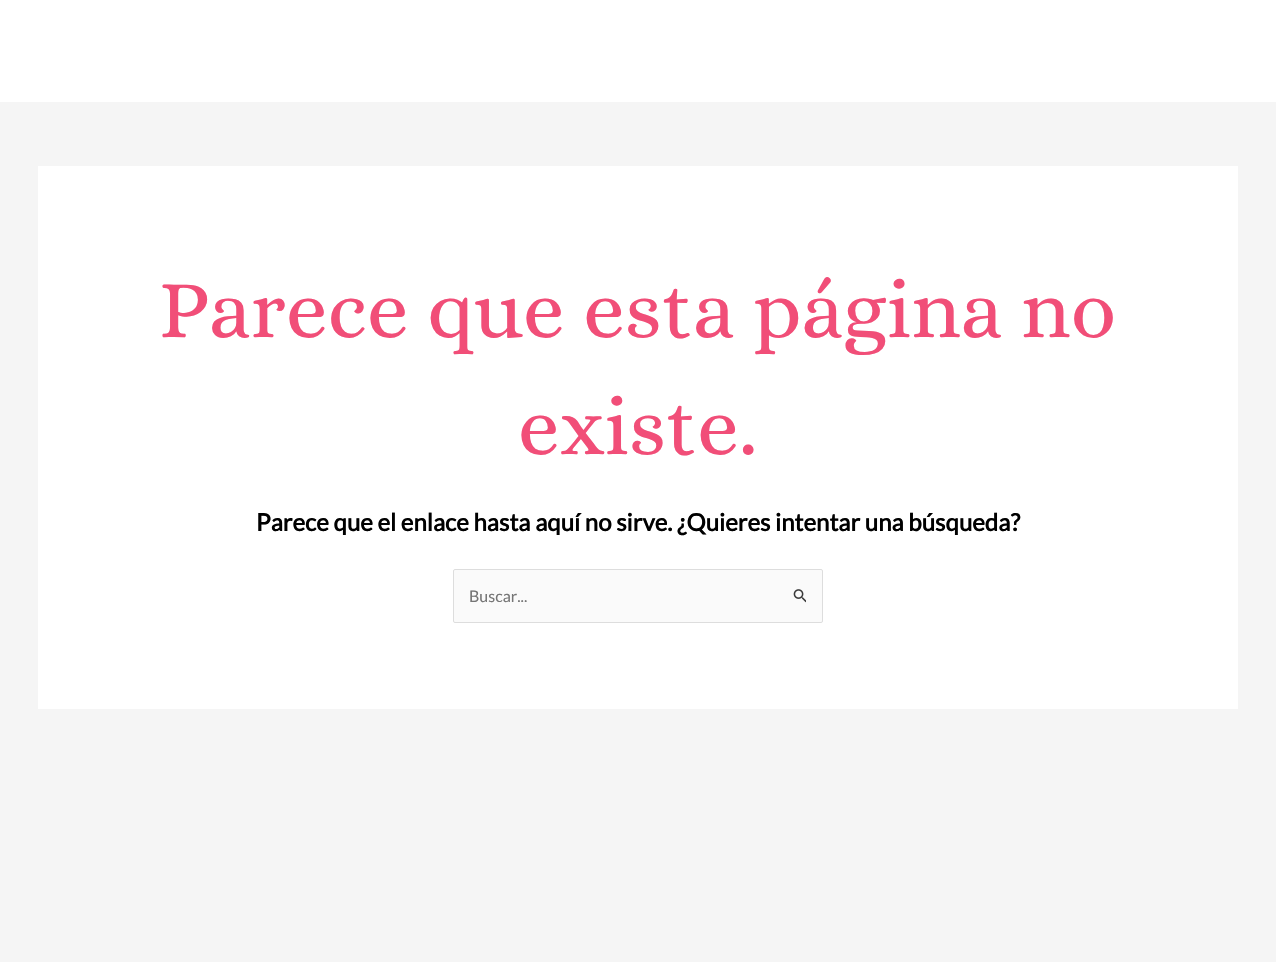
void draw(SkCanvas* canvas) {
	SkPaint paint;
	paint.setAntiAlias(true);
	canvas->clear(0xfff5f5f5);
	paint.setColor(0xffffffff);
	canvas->drawRect(SkRect::MakeXYWH(0, 0, 1276, 102), paint);
	canvas->drawRect(SkRect::MakeXYWH(38, 166, 1200, 543), paint);
	SkFont f1(fontMgr->matchFamilyStyle("Alice", SkFontStyle::Normal()), 83);
	f1.setSubpixel(true);
	paint.setColor(0xfff14e78);
	canvas->drawString("Parece que esta página no", 159, 337, f1, paint);
	canvas->drawString("existe.", 518, 454, f1, paint);
	SkFont f2(fontMgr->matchFamilyStyle("Lato", SkFontStyle::Bold()), 24);
	f2.setSubpixel(true);
	paint.setColor(0xff000000);
	canvas->drawString("Parece que el enlace hasta aquí no sirve. ¿Quieres intentar una búsqueda?", 256, 531, f2, paint);
	paint.setColor(0xfffafafa);
	canvas->drawRoundRect(SkRect::MakeXYWH(453.5, 569.5, 369, 53), 1.5, 1.5, paint);
	paint.setStroke(true);
	paint.setStrokeWidth(1);
	paint.setColor(0xffdddddd);
	canvas->drawRoundRect(SkRect::MakeXYWH(453.5, 569.5, 369, 53), 1.5, 1.5, paint);
	SkFont f3(fontMgr->matchFamilyStyle("Lato", SkFontStyle::Normal()), 16);
	f3.setSubpixel(true);
	paint.setStroke(false);
	paint.setColor(0xff757575);
	canvas->drawString("Buscar...", 469, 602, f3, paint);
	canvas->drawImageRect(SkImages::DeferredFromEncodedData(SkData::MakeFromFileName("img1.png")), SkRect::MakeXYWH(793, 589, 13, 14), SkSamplingOptions());
}
